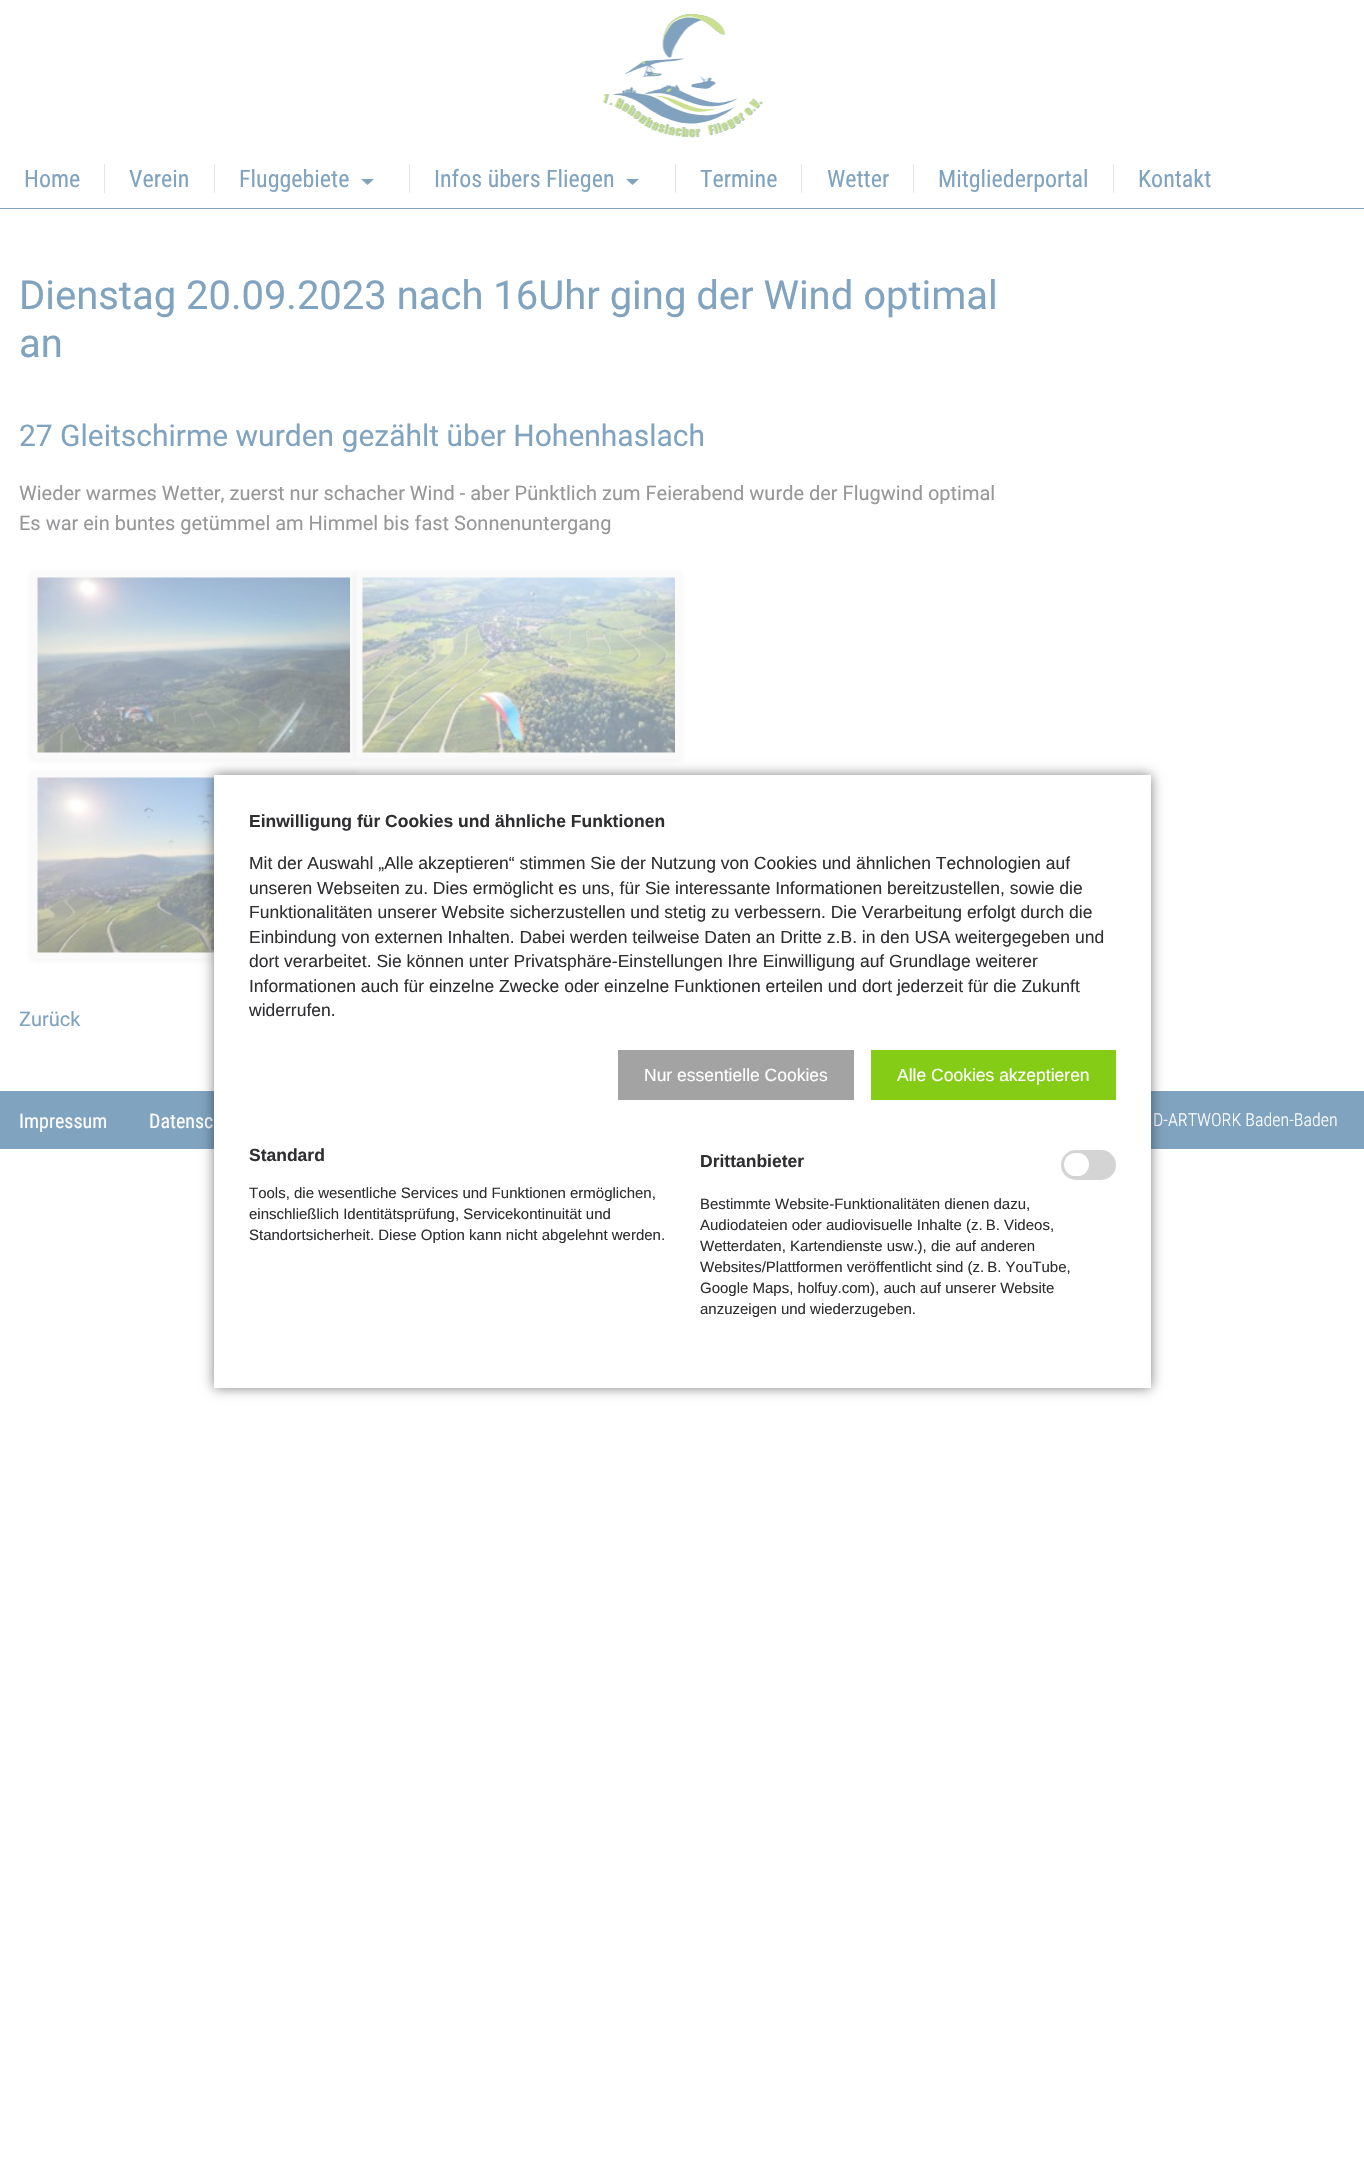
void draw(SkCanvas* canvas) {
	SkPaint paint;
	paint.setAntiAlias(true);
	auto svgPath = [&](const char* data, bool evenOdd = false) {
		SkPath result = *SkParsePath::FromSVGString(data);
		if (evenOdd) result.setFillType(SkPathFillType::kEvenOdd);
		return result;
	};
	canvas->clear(0xffffffff);
	paint.setColor(0xff80a3bf);
	canvas->drawRect(SkRect::MakeXYWH(0, 208, 1364, 1), paint);
	canvas->drawImageRect(SkImages::DeferredFromEncodedData(SkData::MakeFromFileName("img1.png")), SkRect::MakeXYWH(602, 14, 161, 124), SkSamplingOptions());
	paint.setColor(0xffe6e6e6);
	canvas->drawRect(SkRect::MakeXYWH(104, 164, 1, 29), paint);
	SkFont f1(fontMgr->matchFamilyStyle("Roboto Condensed", SkFontStyle::Normal()), 24);
	f1.setSubpixel(true);
	paint.setColor(0xff80a3bf);
	canvas->drawString("Home", 24, 187, f1, paint);
	paint.setColor(0xffe6e6e6);
	canvas->drawRect(SkRect::MakeXYWH(214, 164, 1, 29), paint);
	paint.setColor(0xff80a3bf);
	canvas->drawString("Verein", 129, 187, f1, paint);
	paint.setColor(0xffe6e6e6);
	canvas->drawRect(SkRect::MakeXYWH(409, 164, 1, 29), paint);
	paint.setColor(0xff80a3bf);
	canvas->drawString("Fluggebiete", 239, 187, f1, paint);
	canvas->drawPath(svgPath("M361 179H374L367.5 185Z"), paint);
	paint.setColor(0xffe6e6e6);
	canvas->drawRect(SkRect::MakeXYWH(675, 164, 1, 29), paint);
	paint.setColor(0xff80a3bf);
	canvas->drawString("Infos übers Fliegen", 434, 187, f1, paint);
	canvas->drawPath(svgPath("M626 179H639L632.5 185Z"), paint);
	paint.setColor(0xffe6e6e6);
	canvas->drawRect(SkRect::MakeXYWH(801, 164, 1, 29), paint);
	paint.setColor(0xff80a3bf);
	canvas->drawString("Termine", 700, 187, f1, paint);
	paint.setColor(0xffe6e6e6);
	canvas->drawRect(SkRect::MakeXYWH(913, 164, 1, 29), paint);
	paint.setColor(0xff80a3bf);
	canvas->drawString("Wetter", 827, 187, f1, paint);
	paint.setColor(0xffe6e6e6);
	canvas->drawRect(SkRect::MakeXYWH(1113, 164, 1, 29), paint);
	paint.setColor(0xff80a3bf);
	canvas->drawString("Mitgliederportal", 938, 187, f1, paint);
	canvas->drawString("Kontakt", 1138, 187, f1, paint);
	SkFont f2(fontMgr->matchFamilyStyle("Roboto", SkFontStyle::Normal()), 40);
	f2.setSubpixel(true);
	canvas->drawString("Dienstag 20.09.2023 nach 16Uhr ging der Wind optimal", 19, 309, f2, paint);
	canvas->drawString("an", 19, 357, f2, paint);
	SkFont f3(fontMgr->matchFamilyStyle("Roboto", SkFontStyle::Normal()), 30);
	f3.setSubpixel(true);
	canvas->drawString("27 Gleitschirme wurden gezählt über Hohenhaslach", 19, 446, f3, paint);
	SkFont f4(fontMgr->matchFamilyStyle("Roboto", SkFontStyle::Normal()), 20);
	f4.setSubpixel(true);
	paint.setColor(0xff979799);
	canvas->drawString("Wieder warmes Wetter, zuerst nur schacher Wind - aber Pünktlich zum Feierabend wurde der Flugwind optimal", 19, 500, f4, paint);
	canvas->drawString("Es war ein buntes getümmel am Himmel bis fast Sonnenuntergang", 19, 530, f4, paint);
	paint.setColor(0x1a808080);
	paint.setMaskFilter(SkMaskFilter::MakeBlur(kNormal_SkBlurStyle, 3));
	canvas->drawRoundRect(SkRect::MakeXYWH(31, 573, 325, 187), 2.5, 2.5, paint);
	paint.setMaskFilter(nullptr);
	paint.setColor(0xfffafafa);
	canvas->drawRoundRect(SkRect::MakeXYWH(31, 571, 325, 188), 2.5, 2.5, paint);
	canvas->drawImageRect(SkImages::DeferredFromEncodedData(SkData::MakeFromFileName("img2.png")), SkRect::MakeXYWH(37, 577, 313, 176), SkSamplingOptions());
	paint.setColor(0x1a808080);
	paint.setMaskFilter(SkMaskFilter::MakeBlur(kNormal_SkBlurStyle, 3));
	canvas->drawRoundRect(SkRect::MakeXYWH(356, 573, 325, 187), 2.5, 2.5, paint);
	paint.setMaskFilter(nullptr);
	paint.setColor(0xfffafafa);
	canvas->drawRoundRect(SkRect::MakeXYWH(356, 571, 325, 188), 2.5, 2.5, paint);
	canvas->drawImageRect(SkImages::DeferredFromEncodedData(SkData::MakeFromFileName("img3.png")), SkRect::MakeXYWH(362, 577, 313, 176), SkSamplingOptions());
	paint.setColor(0x1a808080);
	paint.setMaskFilter(SkMaskFilter::MakeBlur(kNormal_SkBlurStyle, 3));
	canvas->drawRoundRect(SkRect::MakeXYWH(31, 773, 325, 187), 2.5, 2.5, paint);
	paint.setMaskFilter(nullptr);
	paint.setColor(0xfffafafa);
	canvas->drawRoundRect(SkRect::MakeXYWH(31, 771, 325, 188), 2.5, 2.5, paint);
	canvas->drawImageRect(SkImages::DeferredFromEncodedData(SkData::MakeFromFileName("img4.png")), SkRect::MakeXYWH(37, 777, 177, 176), SkSamplingOptions());
	paint.setColor(0xff80a3bf);
	canvas->drawString("Zurück", 19, 1026, f4, paint);
	canvas->drawRect(SkRect::MakeXYWH(0, 1091, 1364, 58), paint);
	SkFont f5(fontMgr->matchFamilyStyle("Roboto Condensed", SkFontStyle::Normal()), 20);
	f5.setSubpixel(true);
	paint.setColor(0xffffffff);
	canvas->drawString("Impressum", 19, 1128, f5, paint);
	canvas->drawString("Datensc", 149, 1128, f5, paint);
	SkFont f6(fontMgr->matchFamilyStyle("Roboto Condensed", SkFontStyle(300, SkFontStyle::kNormal_Width, SkFontStyle::kUpright_Slant)), 18);
	f6.setSubpixel(true);
	canvas->drawString("D-ARTWORK Baden-Baden", 1153, 1126, f6, paint);
	paint.setColor(0x80000000);
	paint.setMaskFilter(SkMaskFilter::MakeBlur(kNormal_SkBlurStyle, 6));
	canvas->drawRect(SkRect::MakeXYWH(214, 775, 937, 613), paint);
	paint.setMaskFilter(nullptr);
	paint.setColor(0xffffffff);
	canvas->drawRect(SkRect::MakeXYWH(214, 775, 937, 613), paint);
	SkFont f7(fontMgr->matchFamilyStyle("Liberation Sans", SkFontStyle::Bold()), 17.5);
	f7.setSubpixel(true);
	paint.setColor(0xff2f2f32);
	canvas->drawString("Einwilligung für Cookies und ähnliche Funktionen", 249, 827, f7, paint);
	SkFont f8(fontMgr->matchFamilyStyle("Liberation Sans", SkFontStyle::Normal()), 17.5);
	f8.setSubpixel(true);
	canvas->drawString("Mit der Auswahl „Alle akzeptieren“ stimmen Sie der Nutzung von Cookies und ähnlichen Technologien auf", 249, 869, f8, paint);
	canvas->drawString("unseren Webseiten zu. Dies ermöglicht es uns, für Sie interessante Informationen bereitzustellen, sowie die", 249, 894, f8, paint);
	canvas->drawString("Funktionalitäten unserer Website sicherzustellen und stetig zu verbessern. Die Verarbeitung erfolgt durch die", 249, 918, f8, paint);
	canvas->drawString("Einbindung von externen Inhalten. Dabei werden teilweise Daten an Dritte z.B. in den USA weitergegeben und", 249, 943, f8, paint);
	canvas->drawString("dort verarbeitet. Sie können unter Privatsphäre-Einstellungen Ihre Einwilligung auf Grundlage weiterer", 249, 967, f8, paint);
	canvas->drawString("Informationen auch für einzelne Zwecke oder einzelne Funktionen erteilen und dort jederzeit für die Zukunft", 249, 992, f8, paint);
	canvas->drawString("widerrufen.", 249, 1016, f8, paint);
	paint.setColor(0xffa3a3a3);
	canvas->drawRect(SkRect::MakeXYWH(618, 1050, 236, 50), paint);
	paint.setColor(0xffffffff);
	canvas->drawString("Nur essentielle Cookies", 644, 1081, f8, paint);
	paint.setColor(0xff84cc16);
	canvas->drawRect(SkRect::MakeXYWH(871, 1050, 245, 50), paint);
	paint.setColor(0xffffffff);
	canvas->drawString("Alle Cookies akzeptieren", 897, 1081, f8, paint);
	paint.setColor(0xff2f2f32);
	canvas->drawString("Standard", 249, 1161, f7, paint);
	SkFont f9(fontMgr->matchFamilyStyle("Liberation Sans", SkFontStyle::Normal()), 15);
	f9.setSubpixel(true);
	canvas->drawString("Tools, die wesentliche Services und Funktionen ermöglichen,", 249, 1198, f9, paint);
	canvas->drawString("einschließlich Identitätsprüfung, Servicekontinuität und", 249, 1219, f9, paint);
	canvas->drawString("Standortsicherheit. Diese Option kann nicht abgelehnt werden.", 249, 1240, f9, paint);
	canvas->drawString("Drittanbieter", 700, 1167, f7, paint);
	paint.setColor(0xffd4d4d4);
	canvas->drawRoundRect(SkRect::MakeXYWH(1061, 1150, 55, 30), 15, 15, paint);
	paint.setColor(0xffffffff);
	canvas->drawRoundRect(SkRect::MakeXYWH(1064, 1153, 25, 23), 11.5, 11.5, paint);
	paint.setColor(0xff2f2f32);
	canvas->drawString("Bestimmte Website-Funktionalitäten dienen dazu,", 700, 1209, f9, paint);
	canvas->drawString("Audiodateien oder audiovisuelle Inhalte (z. B. Videos,", 700, 1230, f9, paint);
	canvas->drawString("Wetterdaten, Kartendienste usw.), die auf anderen", 700, 1251, f9, paint);
	canvas->drawString("Websites/Plattformen veröffentlicht sind (z. B. YouTube,", 700, 1272, f9, paint);
	canvas->drawString("Google Maps, holfuy.com), auch auf unserer Website", 700, 1293, f9, paint);
	canvas->drawString("anzuzeigen und wiederzugeben.", 700, 1314, f9, paint);
}
